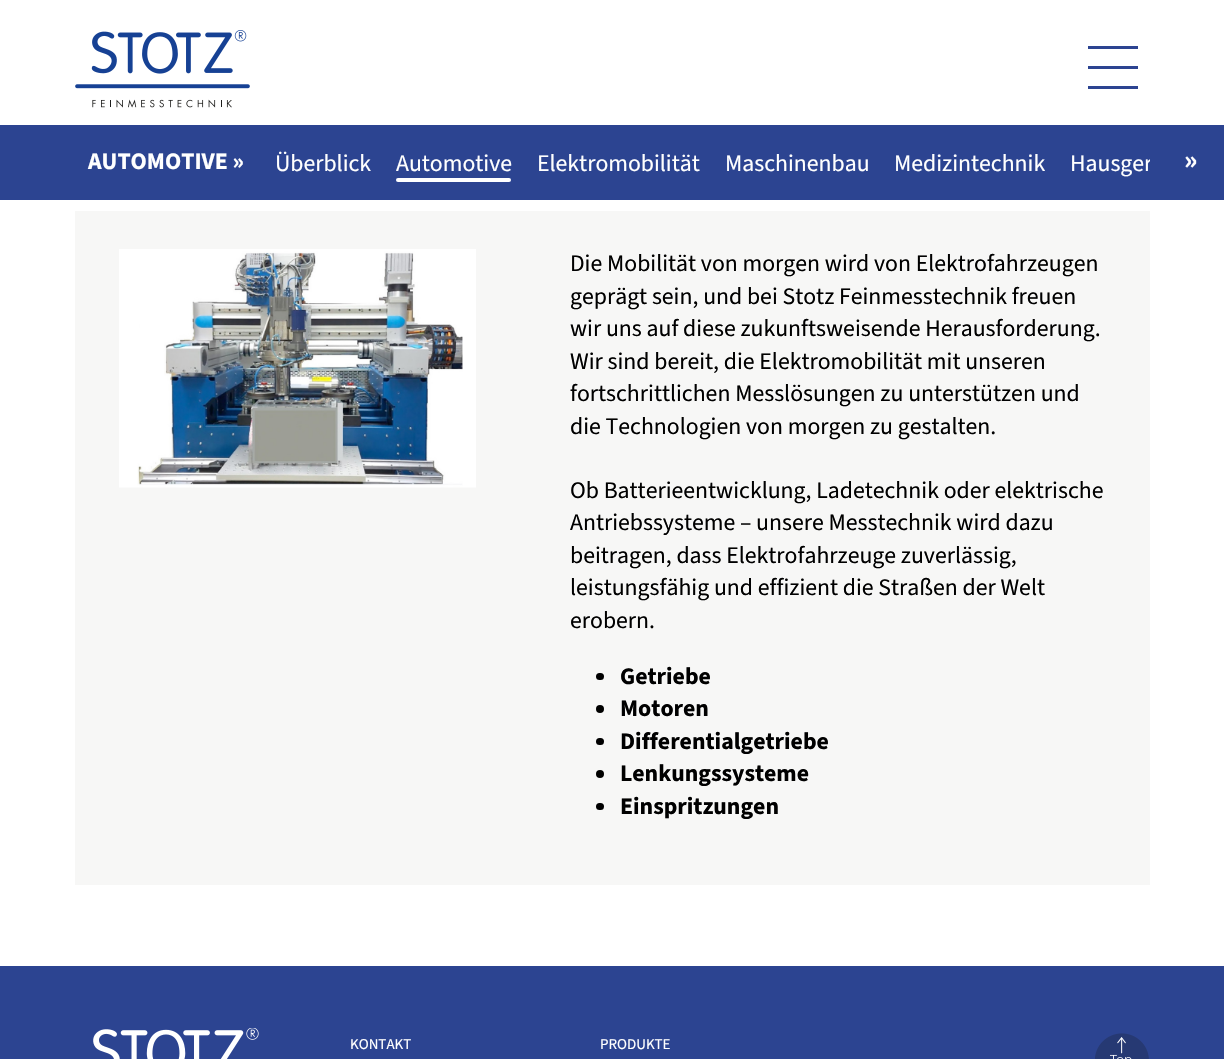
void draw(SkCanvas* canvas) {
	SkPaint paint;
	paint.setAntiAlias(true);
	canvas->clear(0xffffffff);
	canvas->drawImageRect(SkImages::DeferredFromEncodedData(SkData::MakeFromFileName("img1.png")), SkRect::MakeXYWH(75, 30, 175, 78), SkSamplingOptions());
	paint.setColor(0xff2c4491);
	canvas->drawRect(SkRect::MakeXYWH(1088, 46, 50, 3), paint);
	canvas->drawRect(SkRect::MakeXYWH(1088, 66, 50, 3), paint);
	canvas->drawRect(SkRect::MakeXYWH(1088, 86, 50, 3), paint);
	canvas->drawRect(SkRect::MakeXYWH(0, 125, 1224, 75), paint);
	SkFont f1(fontMgr->matchFamilyStyle("Source Sans 3", SkFontStyle::Bold()), 23.75);
	f1.setSubpixel(true);
	paint.setColor(0xffffffff);
	canvas->drawString("AUTOMOTIVE »", 88, 169, f1, paint);
	SkFont f2(fontMgr->matchFamilyStyle("Source Sans 3", SkFontStyle::Normal()), 23.75);
	f2.setSubpixel(true);
	canvas->drawString("Überblick", 275, 171, f2, paint);
	canvas->drawString("Automotive", 396, 171, f2, paint);
	canvas->drawRoundRect(SkRect::MakeXYWH(396, 178, 115, 4), 2, 2, paint);
	canvas->drawString("Elektromobilität", 537, 171, f2, paint);
	canvas->drawString("Maschinenbau", 725, 171, f2, paint);
	canvas->drawString("Medizintechnik", 894, 171, f2, paint);
	canvas->save();
	canvas->clipRect(SkRect::MakeXYWH(275, 146, 875, 54));
	canvas->drawString("Hausger", 1070, 171, f2, paint);
	canvas->restore();
	SkFont f3(fontMgr->matchFamilyStyle("Source Sans 3", SkFontStyle::Bold()), 28);
	f3.setSubpixel(true);
	canvas->drawString("»", 1184, 169, f3, paint);
	paint.setColor(0xfff7f7f6);
	canvas->drawRect(SkRect::MakeXYWH(75, 211, 1075, 674), paint);
	canvas->drawImageRect(SkImages::DeferredFromEncodedData(SkData::MakeFromFileName("img2.png")), SkRect::MakeXYWH(119, 249, 357, 239), SkSamplingOptions());
	paint.setColor(0xff000000);
	canvas->drawString("Die Mobilität von morgen wird von Elektrofahrzeugen", 570, 271, f2, paint);
	canvas->drawString("geprägt sein, und bei Stotz Feinmesstechnik freuen", 570, 304, f2, paint);
	canvas->drawString("wir uns auf diese zukunftsweisende Herausforderung.", 570, 336, f2, paint);
	canvas->drawString("Wir sind bereit, die Elektromobilität mit unseren", 570, 369, f2, paint);
	canvas->drawString("fortschrittlichen Messlösungen zu unterstützen und", 570, 401, f2, paint);
	canvas->drawString("die Technologien von morgen zu gestalten.", 570, 434, f2, paint);
	canvas->drawString("Ob Batterieentwicklung, Ladetechnik oder elektrische", 570, 498, f2, paint);
	canvas->drawString("Antriebssysteme – unsere Messtechnik wird dazu", 570, 530, f2, paint);
	canvas->drawString("beitragen, dass Elektrofahrzeuge zuverlässig,", 570, 563, f2, paint);
	canvas->drawString("leistungsfähig und effizient die Straßen der Welt", 570, 595, f2, paint);
	canvas->drawString("erobern.", 570, 628, f2, paint);
	canvas->drawRoundRect(SkRect::MakeXYWH(596, 673, 8, 7), 3.5, 3.5, paint);
	canvas->drawString("Getriebe", 620, 684, f1, paint);
	canvas->drawCircle(600, 709, 4, paint);
	canvas->drawString("Motoren", 620, 716, f1, paint);
	canvas->drawRoundRect(SkRect::MakeXYWH(596, 738, 8, 7), 3.5, 3.5, paint);
	canvas->drawString("Differentialgetriebe", 620, 749, f1, paint);
	canvas->drawCircle(600, 774, 4, paint);
	canvas->drawString("Lenkungssysteme", 620, 781, f1, paint);
	canvas->drawRoundRect(SkRect::MakeXYWH(596, 803, 8, 7), 3.5, 3.5, paint);
	canvas->drawString("Einspritzungen", 620, 814, f1, paint);
	paint.setColor(0xff2c4491);
	canvas->drawRect(SkRect::MakeXYWH(0, 966, 1224, 93), paint);
	canvas->drawImageRect(SkImages::DeferredFromEncodedData(SkData::MakeFromFileName("img3.png")), SkRect::MakeXYWH(93, 1028, 166, 31), SkSamplingOptions());
	SkFont f4(fontMgr->matchFamilyStyle("Source Sans 3", SkFontStyle::Normal()), 15);
	f4.setSubpixel(true);
	paint.setColor(0xffffffff);
	canvas->drawString("KONTAKT", 350, 1049, f4, paint);
	canvas->drawString("PRODUKTE", 600, 1049, f4, paint);
	canvas->drawImageRect(SkImages::DeferredFromEncodedData(SkData::MakeFromFileName("img4.png")), SkRect::MakeXYWH(1095, 1033, 54, 26), SkSamplingOptions());
}
